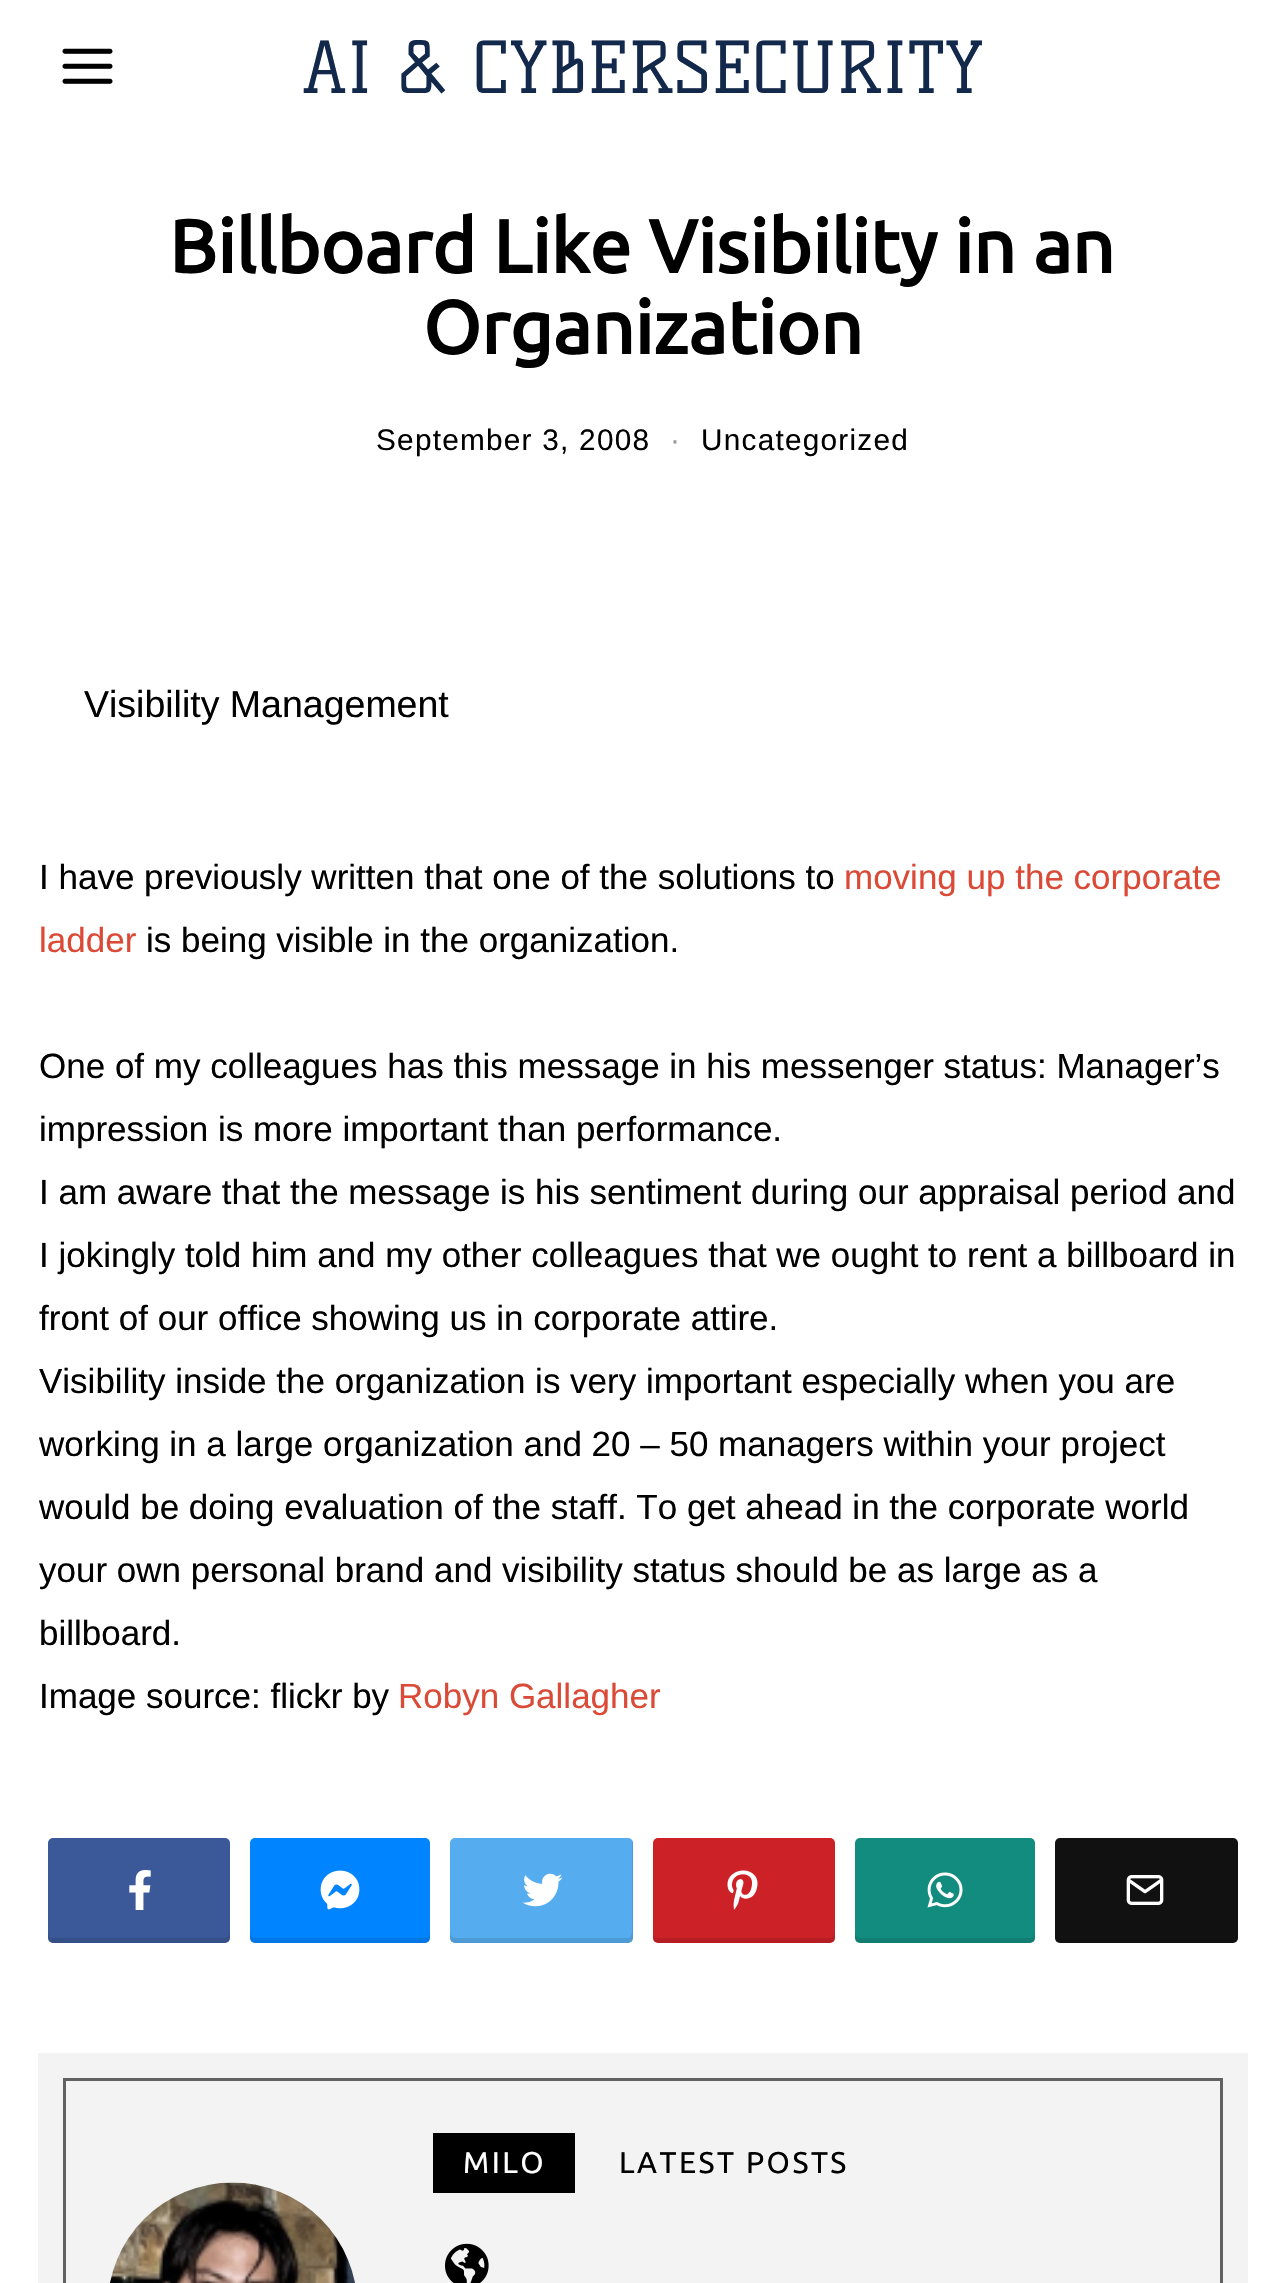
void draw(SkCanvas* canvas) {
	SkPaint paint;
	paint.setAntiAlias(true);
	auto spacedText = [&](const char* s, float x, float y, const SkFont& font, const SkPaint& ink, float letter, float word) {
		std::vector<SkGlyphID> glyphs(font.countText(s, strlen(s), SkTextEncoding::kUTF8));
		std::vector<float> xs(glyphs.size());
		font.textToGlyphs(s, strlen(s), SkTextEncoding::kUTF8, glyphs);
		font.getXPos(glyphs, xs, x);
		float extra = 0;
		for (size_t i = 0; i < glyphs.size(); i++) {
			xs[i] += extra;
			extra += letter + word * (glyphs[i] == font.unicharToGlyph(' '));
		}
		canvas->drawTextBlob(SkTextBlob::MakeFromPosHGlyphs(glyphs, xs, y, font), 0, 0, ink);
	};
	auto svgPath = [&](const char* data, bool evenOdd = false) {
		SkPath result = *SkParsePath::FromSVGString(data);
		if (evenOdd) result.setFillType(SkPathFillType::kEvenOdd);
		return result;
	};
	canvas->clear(0xffffffff);
	canvas->drawImageRect(SkImages::DeferredFromEncodedData(SkData::MakeFromFileName("img1.png")), SkRect::MakeXYWH(62, 48, 51, 36), SkSamplingOptions());
	SkFont f1(fontMgr->matchFamilyStyle("Kelly Slab", SkFontStyle::Normal()), 70);
	f1.setSubpixel(true);
	paint.setColor(0xff13294b);
	canvas->drawString("AI & CYBERSECURITY", 302, 93, f1, paint);
	SkFont f2(fontMgr->matchFamilyStyle("Ubuntu", SkFontStyle::Bold()), 74.5);
	f2.setSubpixel(true);
	paint.setColor(0xff000000);
	canvas->drawString("Billboard Like Visibility in an", 169, 273, f2, paint);
	canvas->drawString("Organization", 423, 354, f2, paint);
	SkFont f3(fontMgr->matchFamilyStyle("Liberation Sans", SkFontStyle::Normal()), 29.75);
	f3.setSubpixel(true);
	spacedText("September 3, 2008", 376, 450, f3, paint, 1.25, 0);
	paint.setColor(0xff999999);
	spacedText("·", 670, 450, f3, paint, 1.25, 0);
	paint.setColor(0xff000000);
	spacedText("Uncategorized", 701, 450, f3, paint, 1.25, 0);
	SkFont f4(fontMgr->matchFamilyStyle("Liberation Sans", SkFontStyle::Normal()), 37.5);
	f4.setSubpixel(true);
	canvas->drawString("Visibility Management", 84, 717, f4, paint);
	SkFont f5(fontMgr->matchFamilyStyle("Liberation Sans", SkFontStyle::Normal()), 35);
	f5.setSubpixel(true);
	canvas->drawString("I have previously written that one of the solutions to", 39, 889, f5, paint);
	paint.setColor(0xffdb4a36);
	canvas->drawString("moving up the corporate", 844, 889, f5, paint);
	canvas->drawString("ladder", 39, 952, f5, paint);
	paint.setColor(0xff000000);
	canvas->drawString("is being visible in the organization.", 146, 952, f5, paint);
	canvas->drawString("One of my colleagues has this message in his messenger status: Manager’s", 39, 1078, f5, paint);
	canvas->drawString("impression is more important than performance.", 39, 1141, f5, paint);
	canvas->drawString("I am aware that the message is his sentiment during our appraisal period and", 39, 1204, f5, paint);
	canvas->drawString("I jokingly told him and my other colleagues that we ought to rent a billboard in", 39, 1267, f5, paint);
	canvas->drawString("front of our office showing us in corporate attire.", 39, 1330, f5, paint);
	canvas->drawString("Visibility inside the organization is very important especially when you are", 39, 1393, f5, paint);
	canvas->drawString("working in a large organization and 20 – 50 managers within your project", 39, 1456, f5, paint);
	canvas->drawString("would be doing evaluation of the staff. To get ahead in the corporate world", 39, 1519, f5, paint);
	canvas->drawString("your own personal brand and visibility status should be as large as a", 39, 1582, f5, paint);
	canvas->drawString("billboard.", 39, 1645, f5, paint);
	canvas->drawString("Image source: flickr by", 39, 1708, f5, paint);
	paint.setColor(0xffdb4a36);
	canvas->drawString("Robyn Gallagher", 398, 1708, f5, paint);
	paint.setColor(0xff3b5998);
	canvas->drawRoundRect(SkRect::MakeXYWH(48, 1838, 182, 105), 5, 5, paint);
	paint.setColor(0x1a000000);
	canvas->drawPath(svgPath("M48 1932V1938C48 1941 50 1943 53 1943H225C228 1943 230 1941 230 1938V1932C230 1935 228 1938 225 1938H52C50 1938 48 1935 48 1932Z"), paint);
	canvas->drawImageRect(SkImages::DeferredFromEncodedData(SkData::MakeFromFileName("img2.png")), SkRect::MakeXYWH(129, 1870, 22, 40), SkSamplingOptions());
	paint.setColor(0xff0084ff);
	canvas->drawRoundRect(SkRect::MakeXYWH(250, 1838, 180, 105), 5, 5, paint);
	paint.setColor(0x1a000000);
	canvas->drawPath(svgPath("M250 1932V1938C250 1941 252 1943 255 1943H425C428 1943 430 1941 430 1938V1932C430 1935 428 1938 425 1938H255C252 1938 250 1935 250 1932Z"), paint);
	canvas->drawImageRect(SkImages::DeferredFromEncodedData(SkData::MakeFromFileName("img3.png")), SkRect::MakeXYWH(320, 1870, 40, 40), SkSamplingOptions());
	paint.setColor(0xff55acee);
	canvas->drawRoundRect(SkRect::MakeXYWH(450, 1838, 183, 105), 5, 5, paint);
	paint.setColor(0x1a000000);
	canvas->drawPath(svgPath("M450 1932V1938C450 1941 452 1943 455 1943H628C631 1943 633 1941 633 1938V1843C633 1842 633 1841 632 1840V1932C632 1935 630 1938 628 1938H455C452 1938 450 1935 450 1932Z"), paint);
	canvas->drawImageRect(SkImages::DeferredFromEncodedData(SkData::MakeFromFileName("img4.png")), SkRect::MakeXYWH(522, 1873, 41, 34), SkSamplingOptions());
	paint.setColor(0xffcc2127);
	canvas->drawRoundRect(SkRect::MakeXYWH(653, 1838, 182, 105), 5, 5, paint);
	paint.setColor(0x1a000000);
	canvas->drawPath(svgPath("M653 1935V1938C653 1941 655 1943 658 1943H830C833 1943 835 1941 835 1938V1932C835 1935 833 1938 830 1938H658C656 1938 654 1937 653 1935Z"), paint);
	canvas->drawImageRect(SkImages::DeferredFromEncodedData(SkData::MakeFromFileName("img5.png")), SkRect::MakeXYWH(727, 1870, 31, 40), SkSamplingOptions());
	paint.setColor(0xff128c7e);
	canvas->drawRoundRect(SkRect::MakeXYWH(855, 1838, 180, 105), 5, 5, paint);
	paint.setColor(0x1a000000);
	canvas->drawPath(svgPath("M855 1932V1938C855 1941 857 1943 860 1943H1030C1033 1943 1035 1941 1035 1938V1932C1035 1935 1033 1938 1030 1938H860C857 1938 855 1935 855 1932Z"), paint);
	canvas->drawImageRect(SkImages::DeferredFromEncodedData(SkData::MakeFromFileName("img6.png")), SkRect::MakeXYWH(927, 1872, 36, 36), SkSamplingOptions());
	paint.setColor(0xff111111);
	canvas->drawRoundRect(SkRect::MakeXYWH(1055, 1838, 183, 105), 5, 5, paint);
	paint.setColor(0x1a000000);
	canvas->drawPath(svgPath("M1055 1932V1938C1055 1941 1057 1943 1060 1943H1233C1236 1943 1238 1941 1238 1938V1932C1238 1935 1235 1938 1232 1938H1060C1057 1938 1055 1935 1055 1932Z"), paint);
	canvas->drawImageRect(SkImages::DeferredFromEncodedData(SkData::MakeFromFileName("img7.png")), SkRect::MakeXYWH(1126, 1875, 38, 30), SkSamplingOptions());
	paint.setColor(0xfff3f3f3);
	canvas->drawRect(SkRect::MakeXYWH(38, 2053, 1210, 230), paint);
	paint.setStroke(true);
	paint.setStrokeWidth(3);
	paint.setColor(0xff616161);
	canvas->drawRect(SkRect::MakeXYWH(64.5, 2079.5, 1157, 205), paint);
	paint.setStroke(false);
	paint.setColor(0xff000000);
	canvas->drawRect(SkRect::MakeXYWH(433, 2133, 142, 60), paint);
	SkFont f6(fontMgr->matchFamilyStyle("Ubuntu", SkFontStyle::Normal()), 30);
	f6.setSubpixel(true);
	paint.setColor(0xffffffff);
	spacedText("MILO", 463, 2173, f6, paint, 2.5, 0);
	paint.setColor(0xff000000);
	spacedText("LATEST POSTS", 619, 2173, f6, paint, 2.5, 0);
	canvas->drawImageRect(SkImages::DeferredFromEncodedData(SkData::MakeFromFileName("img8.png")), SkRect::MakeXYWH(445, 2243, 44, 40), SkSamplingOptions());
	canvas->drawImageRect(SkImages::DeferredFromEncodedData(SkData::MakeFromFileName("img9.png")), SkRect::MakeXYWH(109, 2182, 246, 101), SkSamplingOptions());
}
